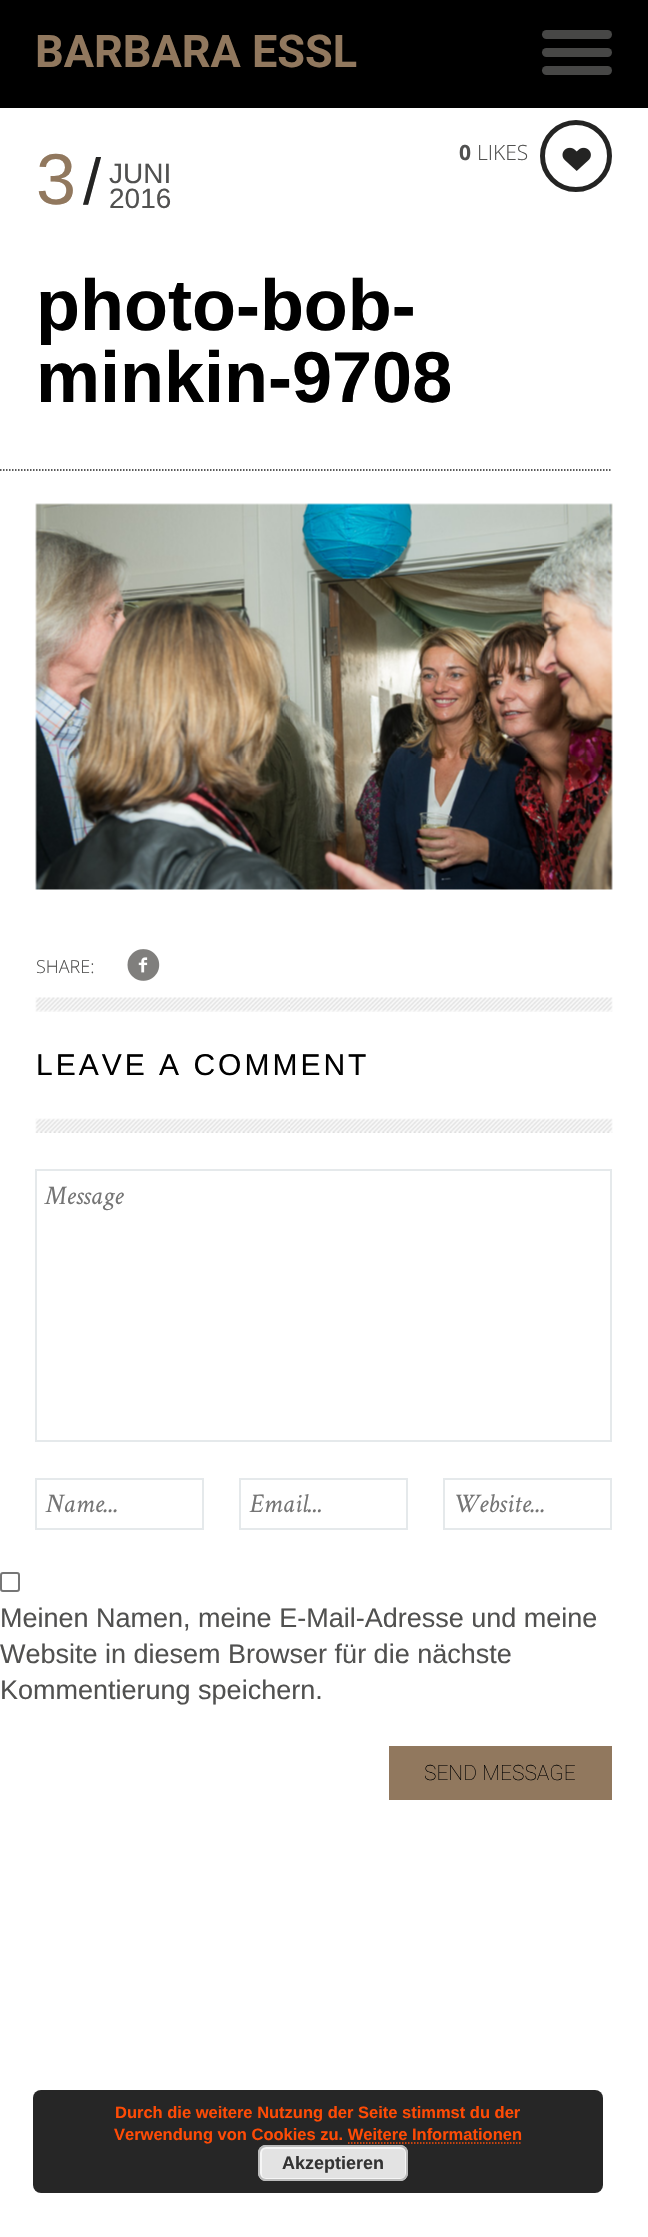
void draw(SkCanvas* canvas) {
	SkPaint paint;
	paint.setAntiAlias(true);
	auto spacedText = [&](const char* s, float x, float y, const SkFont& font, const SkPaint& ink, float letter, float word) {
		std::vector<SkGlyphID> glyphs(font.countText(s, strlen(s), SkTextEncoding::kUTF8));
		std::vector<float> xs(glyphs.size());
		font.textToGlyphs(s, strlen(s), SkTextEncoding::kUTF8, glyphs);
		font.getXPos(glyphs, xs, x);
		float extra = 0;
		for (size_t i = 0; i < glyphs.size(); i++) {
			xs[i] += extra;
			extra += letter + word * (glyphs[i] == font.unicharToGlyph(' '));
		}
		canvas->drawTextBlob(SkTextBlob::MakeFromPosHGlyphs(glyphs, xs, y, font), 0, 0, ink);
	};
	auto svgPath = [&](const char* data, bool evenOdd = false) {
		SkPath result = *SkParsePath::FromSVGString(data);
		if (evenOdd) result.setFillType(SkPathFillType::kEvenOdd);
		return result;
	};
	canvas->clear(0xffffffff);
	paint.setColor(0xff000000);
	canvas->drawRect(SkRect::MakeXYWH(0, 0, 648, 108), paint);
	SkFont f1(fontMgr->matchFamilyStyle("Roboto", SkFontStyle::Bold()), 45);
	f1.setSubpixel(true);
	paint.setColor(0xff91785e);
	canvas->drawString("BARBARA ESSL", 35, 67, f1, paint);
	paint.setColor(0xff474746);
	canvas->drawRoundRect(SkRect::MakeXYWH(542, 48, 70, 9), 4.5, 4.5, paint);
	canvas->drawRoundRect(SkRect::MakeXYWH(542, 30, 70, 9), 4.5, 4.5, paint);
	canvas->drawRoundRect(SkRect::MakeXYWH(542, 66, 70, 9), 4.5, 4.5, paint);
	SkFont f2(fontMgr->matchFamilyStyle("Liberation Sans", SkFontStyle::Normal()), 72);
	f2.setSubpixel(true);
	paint.setColor(0xff91785e);
	canvas->drawString("3", 36, 204, f2, paint);
	SkFont f3(fontMgr->matchFamilyStyle("Liberation Sans", SkFontStyle::Normal()), 65);
	f3.setSubpixel(true);
	paint.setColor(0xff242423);
	canvas->drawString("/", 83, 204, f3, paint);
	SkFont f4(fontMgr->matchFamilyStyle("Liberation Sans", SkFontStyle::Normal()), 28);
	f4.setSubpixel(true);
	paint.setColor(0xff515150);
	canvas->drawString("JUNI", 109, 183, f4, paint);
	canvas->drawString("2016", 109, 208, f4, paint);
	SkFont f5(fontMgr->matchFamilyStyle("Liberation Sans", SkFontStyle::Bold()), 72);
	f5.setSubpixel(true);
	paint.setColor(0xff000000);
	canvas->drawString("photo-bob-", 36, 330, f5, paint);
	canvas->drawString("minkin-9708", 36, 402, f5, paint);
	paint.setStroke(true);
	paint.setStrokeWidth(1.5);
	paint.setColor(0xff242423);
	paint.setPathEffect(SkDashPathEffect::Make({{1.5f, 1.5f}}, 0));
	canvas->drawPath(svgPath("M-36 470H612"), paint);
	paint.setPathEffect(nullptr);
	SkFont f6(fontMgr->matchFamilyStyle("Open Sans", SkFontStyle::Bold()), 21);
	f6.setSubpixel(true);
	paint.setStroke(false);
	paint.setColor(0xff515150);
	canvas->drawString("0", 459, 160, f6, paint);
	SkFont f7(fontMgr->matchFamilyStyle("Open Sans", SkFontStyle(300, SkFontStyle::kNormal_Width, SkFontStyle::kUpright_Slant)), 21);
	f7.setSubpixel(true);
	canvas->drawString("LIKES", 477, 160, f7, paint);
	paint.setStroke(true);
	paint.setStrokeWidth(5);
	paint.setColor(0xff242423);
	canvas->drawCircle(576, 156, 33.5, paint);
	canvas->drawImageRect(SkImages::DeferredFromEncodedData(SkData::MakeFromFileName("img1.png")), SkRect::MakeXYWH(562, 147, 29, 24), SkSamplingOptions());
	canvas->drawImageRect(SkImages::DeferredFromEncodedData(SkData::MakeFromFileName("img2.png")), SkRect::MakeXYWH(35, 503, 578, 387), SkSamplingOptions());
	SkFont f8(fontMgr->matchFamilyStyle("Open Sans", SkFontStyle(300, SkFontStyle::kNormal_Width, SkFontStyle::kUpright_Slant)), 18);
	f8.setSubpixel(true);
	paint.setStroke(false);
	paint.setColor(0xff515150);
	canvas->drawString("SHARE:", 36, 973, f8, paint);
	canvas->drawImageRect(SkImages::DeferredFromEncodedData(SkData::MakeFromFileName("img3.png")), SkRect::MakeXYWH(127, 949, 33, 32), SkSamplingOptions());
	canvas->drawImageRect(SkImages::DeferredFromEncodedData(SkData::MakeFromFileName("img4.png")), SkRect::MakeXYWH(35, 997, 578, 15), SkSamplingOptions());
	SkFont f9(fontMgr->matchFamilyStyle("Liberation Sans", SkFontStyle::Normal()), 30);
	f9.setSubpixel(true);
	paint.setColor(0xff000000);
	spacedText("LEAVE A COMMENT", 36, 1075, f9, paint, 3, 0);
	canvas->drawImageRect(SkImages::DeferredFromEncodedData(SkData::MakeFromFileName("img5.png")), SkRect::MakeXYWH(35, 1118, 578, 15), SkSamplingOptions());
	paint.setStroke(true);
	paint.setStrokeWidth(2);
	paint.setColor(0xffe5e9eb);
	canvas->drawRect(SkRect::MakeXYWH(36, 1170, 575, 271), paint);
	SkFont f10(fontMgr->matchFamilyStyle("Crimson Text", SkFontStyle::Italic()), 27);
	f10.setSubpixel(true);
	paint.setStroke(false);
	paint.setColor(0xff757575);
	canvas->drawString("Message", 45, 1204, f10, paint);
	paint.setStroke(true);
	paint.setColor(0xffe5e9eb);
	canvas->drawRect(SkRect::MakeXYWH(36, 1479, 167, 50), paint);
	paint.setStroke(false);
	paint.setColor(0xff757575);
	canvas->drawString("Name...", 45, 1512, f10, paint);
	paint.setStroke(true);
	paint.setColor(0xffe5e9eb);
	canvas->drawRect(SkRect::MakeXYWH(240, 1479, 167, 50), paint);
	paint.setStroke(false);
	paint.setColor(0xff757575);
	canvas->drawString("Email...", 249, 1512, f10, paint);
	paint.setStroke(true);
	paint.setColor(0xffe5e9eb);
	canvas->drawRect(SkRect::MakeXYWH(444, 1479, 167, 50), paint);
	paint.setStroke(false);
	paint.setColor(0xff757575);
	canvas->drawString("Website...", 453, 1512, f10, paint);
	paint.setStroke(true);
	paint.setColor(0xff767676);
	canvas->drawRoundRect(SkRect::MakeXYWH(1, 1573, 18, 18), 2, 2, paint);
	SkFont f11(fontMgr->matchFamilyStyle("Liberation Sans", SkFontStyle::Normal()), 27);
	f11.setSubpixel(true);
	paint.setStroke(false);
	paint.setColor(0xff515150);
	canvas->drawString("Meinen Namen, meine E-Mail-Adresse und meine", 0, 1627, f11, paint);
	canvas->drawString("Website in diesem Browser für die nächste", 0, 1663, f11, paint);
	canvas->drawString("Kommentierung speichern.", 0, 1699, f11, paint);
	paint.setColor(0xff91785e);
	canvas->drawRect(SkRect::MakeXYWH(389, 1746, 223, 54), paint);
	SkFont f12(fontMgr->matchFamilyStyle("Roboto", SkFontStyle(100, SkFontStyle::kNormal_Width, SkFontStyle::kUpright_Slant)), 21);
	f12.setSubpixel(true);
	paint.setColor(0xff000000);
	canvas->drawString("SEND MESSAGE", 424, 1780, f12, paint);
	paint.setColor(0xff262626);
	canvas->drawRoundRect(SkRect::MakeXYWH(33, 2090, 570, 103), 8, 8, paint);
	SkFont f13(fontMgr->matchFamilyStyle("Liberation Sans", SkFontStyle::Bold()), 16.5);
	f13.setSubpixel(true);
	paint.setColor(0xffff4b05);
	canvas->drawString("Durch die weitere Nutzung der Seite stimmst du der", 115, 2118, f13, paint);
	canvas->drawString("Verwendung von Cookies zu. Weitere Informationen", 114, 2140, f13, paint);
	paint.setStroke(true);
	paint.setStrokeWidth(1.5);
	paint.setPathEffect(SkDashPathEffect::Make({{1.5f, 1.5f}}, 0));
	canvas->drawPath(svgPath("M348 2143H522"), paint);
	paint.setPathEffect(nullptr);
	paint.setStroke(false);
	paint.setColor(0xffe3e3e3);
	canvas->drawRoundRect(SkRect::MakeXYWH(258, 2145, 150, 36), 8, 8, paint);
	paint.setStroke(true);
	paint.setStrokeWidth(2);
	paint.setColor(0xfff6f6f6);
	canvas->drawRoundRect(SkRect::MakeXYWH(261, 2148, 145, 31), 5, 5, paint);
	paint.setColor(0xffbbbbbb);
	canvas->drawRoundRect(SkRect::MakeXYWH(259, 2146, 148, 34), 7, 7, paint);
	SkFont f14(fontMgr->matchFamilyStyle("Liberation Sans", SkFontStyle::Bold()), 18);
	f14.setSubpixel(true);
	paint.setStroke(false);
	paint.setColor(0xff333333);
	canvas->drawString("Akzeptieren", 282, 2169, f14, paint);
}
